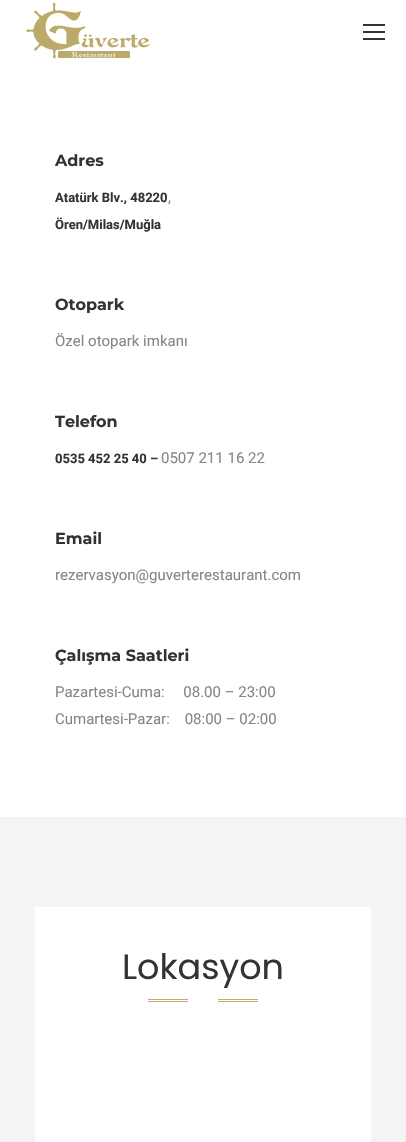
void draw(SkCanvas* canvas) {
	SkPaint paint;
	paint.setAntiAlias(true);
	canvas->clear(0xffffffff);
	canvas->drawImageRect(SkImages::DeferredFromEncodedData(SkData::MakeFromFileName("img1.png")), SkRect::MakeXYWH(26, 2, 124, 57), SkSamplingOptions());
	paint.setColor(0xff333333);
	canvas->drawRect(SkRect::MakeXYWH(363, 24, 22, 2), paint);
	canvas->drawRect(SkRect::MakeXYWH(363, 31, 22, 2), paint);
	canvas->drawRect(SkRect::MakeXYWH(363, 38, 22, 2), paint);
	SkFont f1(fontMgr->matchFamilyStyle("Montserrat", SkFontStyle::Bold()), 16);
	f1.setSubpixel(true);
	canvas->drawString("Adres", 55, 166, f1, paint);
	SkFont f2(fontMgr->matchFamilyStyle("Roboto", SkFontStyle::Bold()), 13);
	f2.setSubpixel(true);
	canvas->drawString("Atatürk Blv., 48220", 55, 202, f2, paint);
	SkFont f3(fontMgr->matchFamilyStyle("Roboto", SkFontStyle::Normal()), 15);
	f3.setSubpixel(true);
	paint.setColor(0xff85868c);
	canvas->drawString(",", 168, 202, f3, paint);
	paint.setColor(0xff333333);
	canvas->drawString("Ören/Milas/Muğla", 55, 229, f2, paint);
	canvas->drawString("Otopark", 55, 310, f1, paint);
	paint.setColor(0xff85868c);
	canvas->drawString("Özel otopark imkanı", 55, 346, f3, paint);
	paint.setColor(0xff333333);
	canvas->drawString("Telefon", 55, 427, f1, paint);
	canvas->drawString("0535 452 25 40 –", 55, 463, f2, paint);
	paint.setColor(0xff85868c);
	canvas->drawString("0507 211 16 22", 161, 463, f3, paint);
	paint.setColor(0xff333333);
	canvas->drawString("Email", 55, 544, f1, paint);
	paint.setColor(0xff85868c);
	canvas->drawString("rezervasyon@guverterestaurant.com", 55, 580, f3, paint);
	paint.setColor(0xff333333);
	canvas->drawString("Çalışma Saatleri", 55, 661, f1, paint);
	paint.setColor(0xff85868c);
	canvas->drawString("Pazartesi-Cuma:     08.00 – 23:00", 55, 697, f3, paint);
	canvas->drawString("Cumartesi-Pazar:    08:00 – 02:00", 55, 724, f3, paint);
	paint.setColor(0xfff4f4f4);
	canvas->drawRect(SkRect::MakeXYWH(0, 817, 406, 325), paint);
	paint.setColor(0xffffffff);
	canvas->drawRect(SkRect::MakeXYWH(35, 907, 336, 235), paint);
	SkFont f4(fontMgr->matchFamilyStyle("Poppins", SkFontStyle::Normal()), 35);
	f4.setSubpixel(true);
	paint.setColor(0xff333333);
	canvas->drawString("Lokasyon", 122, 979, f4, paint);
	paint.setColor(0xffc4ac70);
	canvas->drawRect(SkRect::MakeXYWH(148, 999, 40, 1), paint);
	canvas->drawRect(SkRect::MakeXYWH(148, 1001, 40, 1), paint);
	canvas->drawRect(SkRect::MakeXYWH(218, 999, 40, 1), paint);
	canvas->drawRect(SkRect::MakeXYWH(218, 1001, 40, 1), paint);
}
